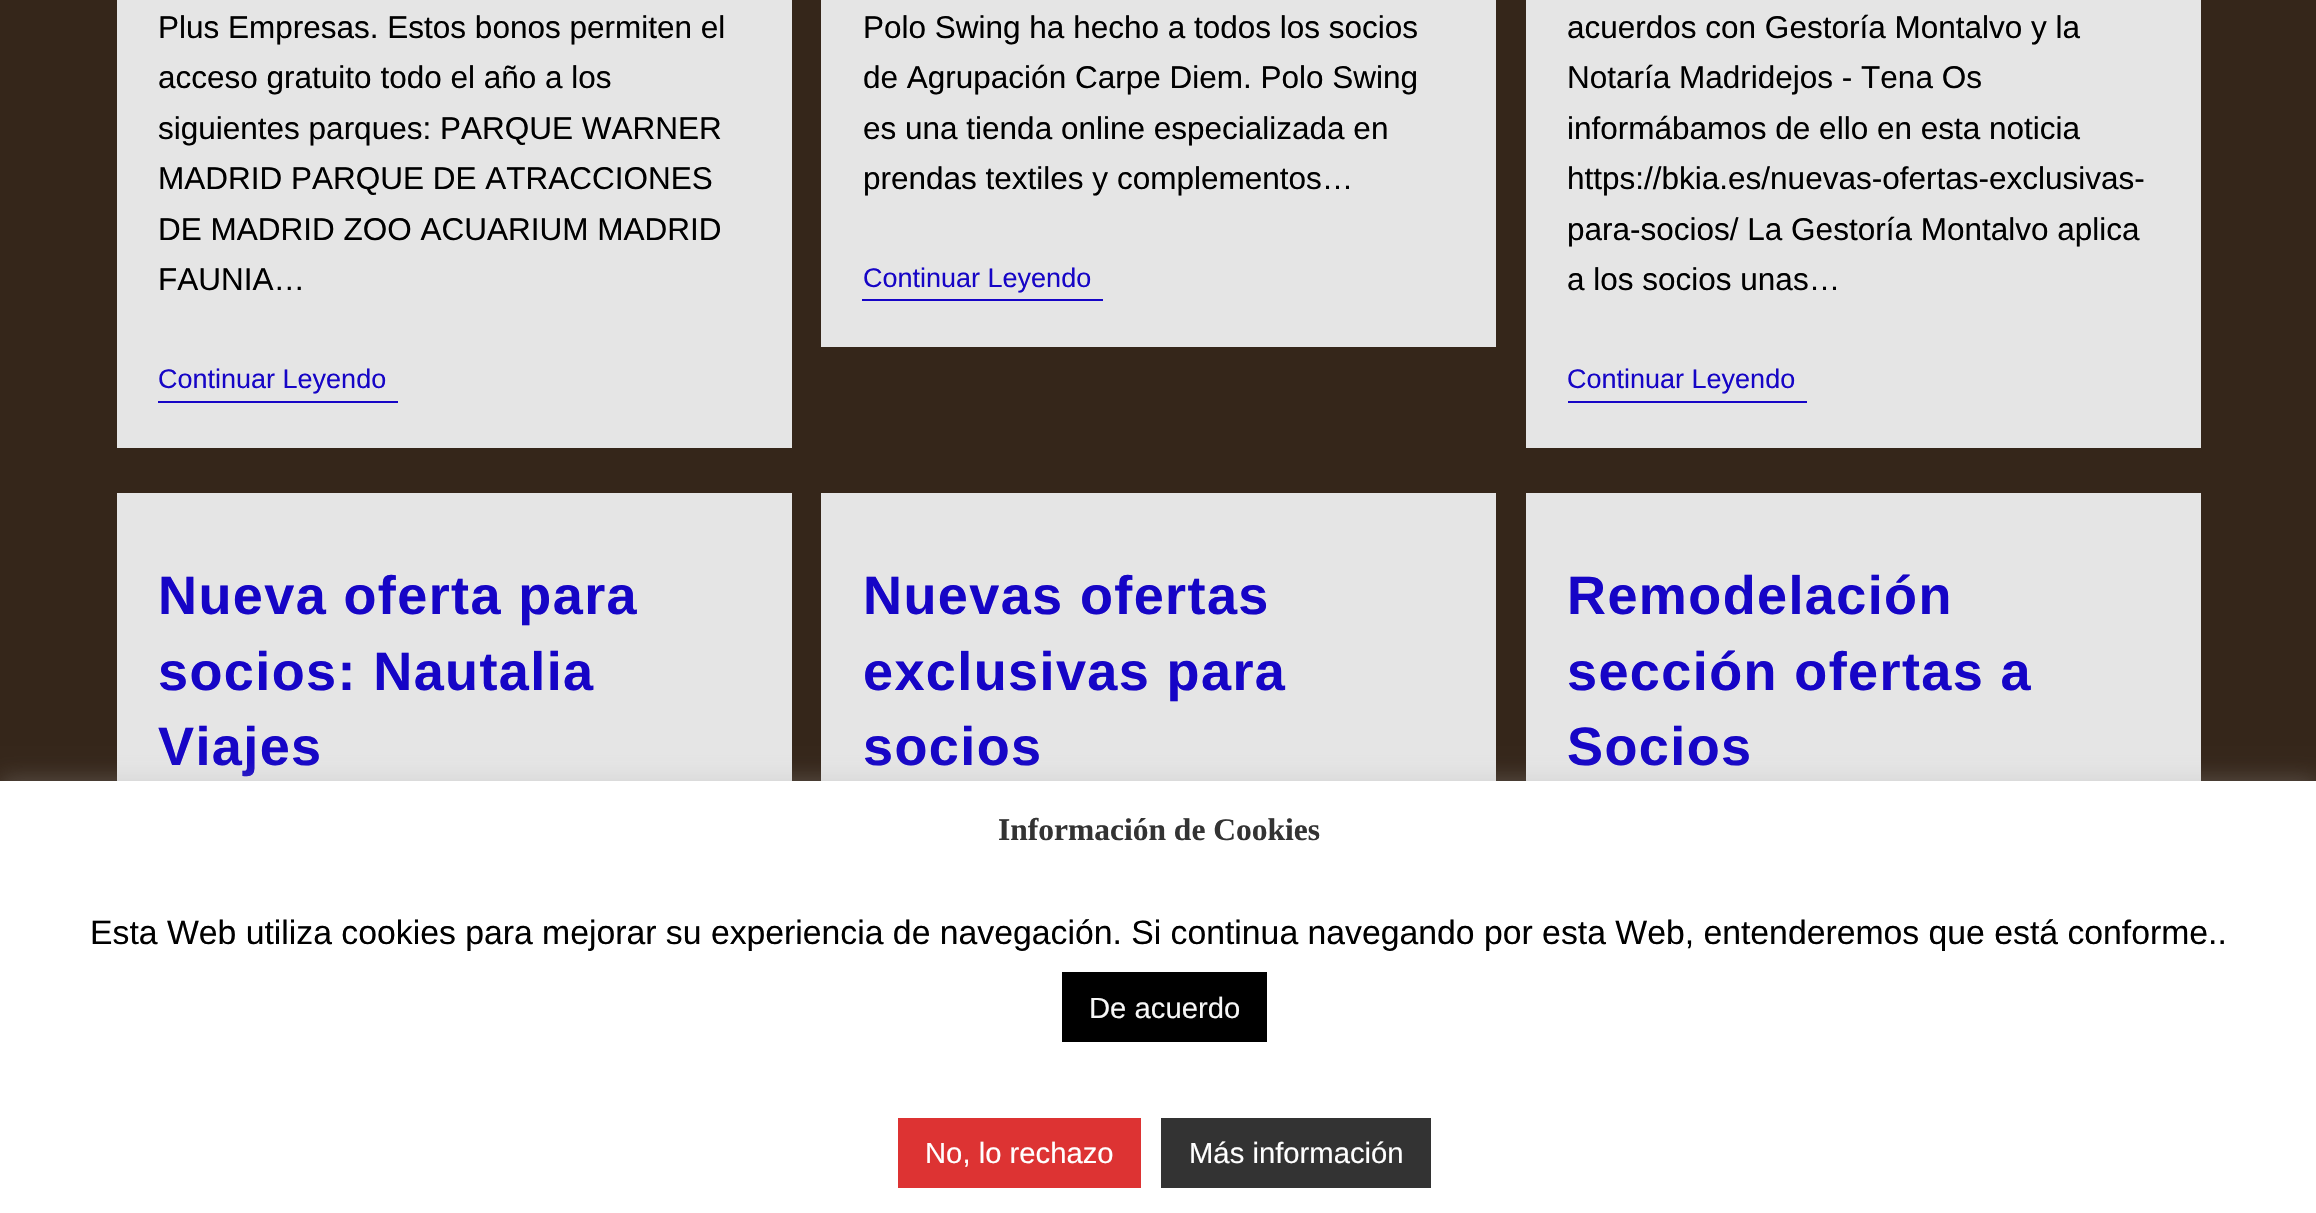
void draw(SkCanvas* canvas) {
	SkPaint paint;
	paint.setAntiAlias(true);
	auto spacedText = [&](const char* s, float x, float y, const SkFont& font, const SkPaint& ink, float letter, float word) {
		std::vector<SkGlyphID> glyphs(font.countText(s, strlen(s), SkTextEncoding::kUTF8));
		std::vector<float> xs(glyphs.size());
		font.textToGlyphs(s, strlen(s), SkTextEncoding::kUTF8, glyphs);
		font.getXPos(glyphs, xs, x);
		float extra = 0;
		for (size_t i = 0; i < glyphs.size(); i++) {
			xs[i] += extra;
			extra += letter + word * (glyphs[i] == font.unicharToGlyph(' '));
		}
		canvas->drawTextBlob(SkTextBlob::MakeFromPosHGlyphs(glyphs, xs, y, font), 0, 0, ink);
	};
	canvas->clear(0xff35261a);
	paint.setColor(0xffe5e5e5);
	canvas->drawRect(SkRect::MakeXYWH(117, 0, 675, 448), paint);
	SkFont f1(fontMgr->matchFamilyStyle("Liberation Sans", SkFontStyle::Normal()), 31.5);
	f1.setSubpixel(true);
	paint.setColor(0xff000000);
	canvas->drawString("Plus Empresas. Estos bonos permiten el", 158, 38, f1, paint);
	canvas->drawString("acceso gratuito todo el año a los", 158, 88, f1, paint);
	canvas->drawString("siguientes parques: PARQUE WARNER", 158, 139, f1, paint);
	canvas->drawString("MADRID PARQUE DE ATRACCIONES", 158, 189, f1, paint);
	canvas->drawString("DE MADRID ZOO ACUARIUM MADRID", 158, 240, f1, paint);
	canvas->drawString("FAUNIA…", 158, 290, f1, paint);
	paint.setColor(0xff1605c6);
	canvas->drawRect(SkRect::MakeXYWH(158, 401, 240, 2), paint);
	SkFont f2(fontMgr->matchFamilyStyle("Liberation Sans", SkFontStyle::Normal()), 27);
	f2.setSubpixel(true);
	canvas->drawString("Continuar Leyendo", 158, 388, f2, paint);
	paint.setColor(0xffe5e5e5);
	canvas->drawRect(SkRect::MakeXYWH(821, 0, 675, 347), paint);
	paint.setColor(0xff000000);
	canvas->drawString("Polo Swing ha hecho a todos los socios", 863, 38, f1, paint);
	canvas->drawString("de Agrupación Carpe Diem. Polo Swing", 863, 88, f1, paint);
	canvas->drawString("es una tienda online especializada en", 863, 139, f1, paint);
	canvas->drawString("prendas textiles y complementos…", 863, 189, f1, paint);
	paint.setColor(0xff1605c6);
	canvas->drawRect(SkRect::MakeXYWH(862, 299, 241, 2), paint);
	canvas->drawString("Continuar Leyendo", 863, 287, f2, paint);
	paint.setColor(0xffe5e5e5);
	canvas->drawRect(SkRect::MakeXYWH(1526, 0, 675, 448), paint);
	paint.setColor(0xff000000);
	canvas->drawString("acuerdos con Gestoría Montalvo y la", 1567, 38, f1, paint);
	canvas->drawString("Notaría Madridejos - Tena Os", 1567, 88, f1, paint);
	canvas->drawString("informábamos de ello en esta noticia", 1567, 139, f1, paint);
	canvas->drawString("https://bkia.es/nuevas-ofertas-exclusivas-", 1567, 189, f1, paint);
	canvas->drawString("para-socios/ La Gestoría Montalvo aplica", 1567, 240, f1, paint);
	canvas->drawString("a los socios unas…", 1567, 290, f1, paint);
	paint.setColor(0xff1605c6);
	canvas->drawRect(SkRect::MakeXYWH(1568, 401, 239, 2), paint);
	canvas->drawString("Continuar Leyendo", 1567, 388, f2, paint);
	paint.setColor(0xffe5e5e5);
	canvas->drawRect(SkRect::MakeXYWH(117, 493, 675, 288), paint);
	SkFont f3(fontMgr->matchFamilyStyle("Liberation Sans", SkFontStyle::Bold()), 54);
	f3.setSubpixel(true);
	paint.setColor(0xff1605c6);
	spacedText("Nueva oferta para", 158, 614, f3, paint, 1.4, 0);
	spacedText("socios: Nautalia", 158, 690, f3, paint, 1.4, 0);
	spacedText("Viajes", 158, 765, f3, paint, 1.4, 0);
	paint.setColor(0xffe5e5e5);
	canvas->drawRect(SkRect::MakeXYWH(821, 493, 675, 288), paint);
	paint.setColor(0xff1605c6);
	spacedText("Nuevas ofertas", 863, 614, f3, paint, 1.4, 0);
	spacedText("exclusivas para", 863, 690, f3, paint, 1.4, 0);
	spacedText("socios", 863, 765, f3, paint, 1.4, 0);
	paint.setColor(0xffe5e5e5);
	canvas->drawRect(SkRect::MakeXYWH(1526, 493, 675, 288), paint);
	paint.setColor(0xff1605c6);
	spacedText("Remodelación", 1567, 614, f3, paint, 1.4, 0);
	spacedText("sección ofertas a", 1567, 690, f3, paint, 1.4, 0);
	spacedText("Socios", 1567, 765, f3, paint, 1.4, 0);
	paint.setColor(0x4dacabab);
	paint.setMaskFilter(SkMaskFilter::MakeBlur(kNormal_SkBlurStyle, 11));
	canvas->drawRect(SkRect::MakeXYWH(0, 779, 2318, 434), paint);
	paint.setMaskFilter(nullptr);
	paint.setColor(0xffffffff);
	canvas->drawRect(SkRect::MakeXYWH(0, 781, 2316, 432), paint);
	SkFont f4(fontMgr->matchFamilyStyle("Liberation Serif", SkFontStyle::Bold()), 31.5);
	f4.setSubpixel(true);
	paint.setColor(0xff333333);
	canvas->drawString("Información de Cookies", 998, 840, f4, paint);
	SkFont f5(fontMgr->matchFamilyStyle("Liberation Sans", SkFontStyle::Normal()), 33.75);
	f5.setSubpixel(true);
	paint.setColor(0xff000000);
	canvas->drawString("Esta Web utiliza cookies para mejorar su experiencia de navegación. Si continua navegando por esta Web, entenderemos que está conforme..", 90, 944, f5, paint);
	canvas->drawRect(SkRect::MakeXYWH(1062, 972, 205, 70), paint);
	SkFont f6(fontMgr->matchFamilyStyle("Liberation Sans", SkFontStyle::Normal()), 29.25);
	f6.setSubpixel(true);
	paint.setColor(0xfff7f7f7);
	canvas->drawString("De acuerdo", 1089, 1018, f6, paint);
	paint.setColor(0xffdd3333);
	canvas->drawRect(SkRect::MakeXYWH(898, 1118, 243, 70), paint);
	paint.setColor(0xffffffff);
	canvas->drawString("No, lo rechazo", 925, 1163, f6, paint);
	paint.setColor(0xff333333);
	canvas->drawRect(SkRect::MakeXYWH(1161, 1118, 270, 70), paint);
	paint.setColor(0xffffffff);
	canvas->drawString("Más información", 1189, 1163, f6, paint);
}
